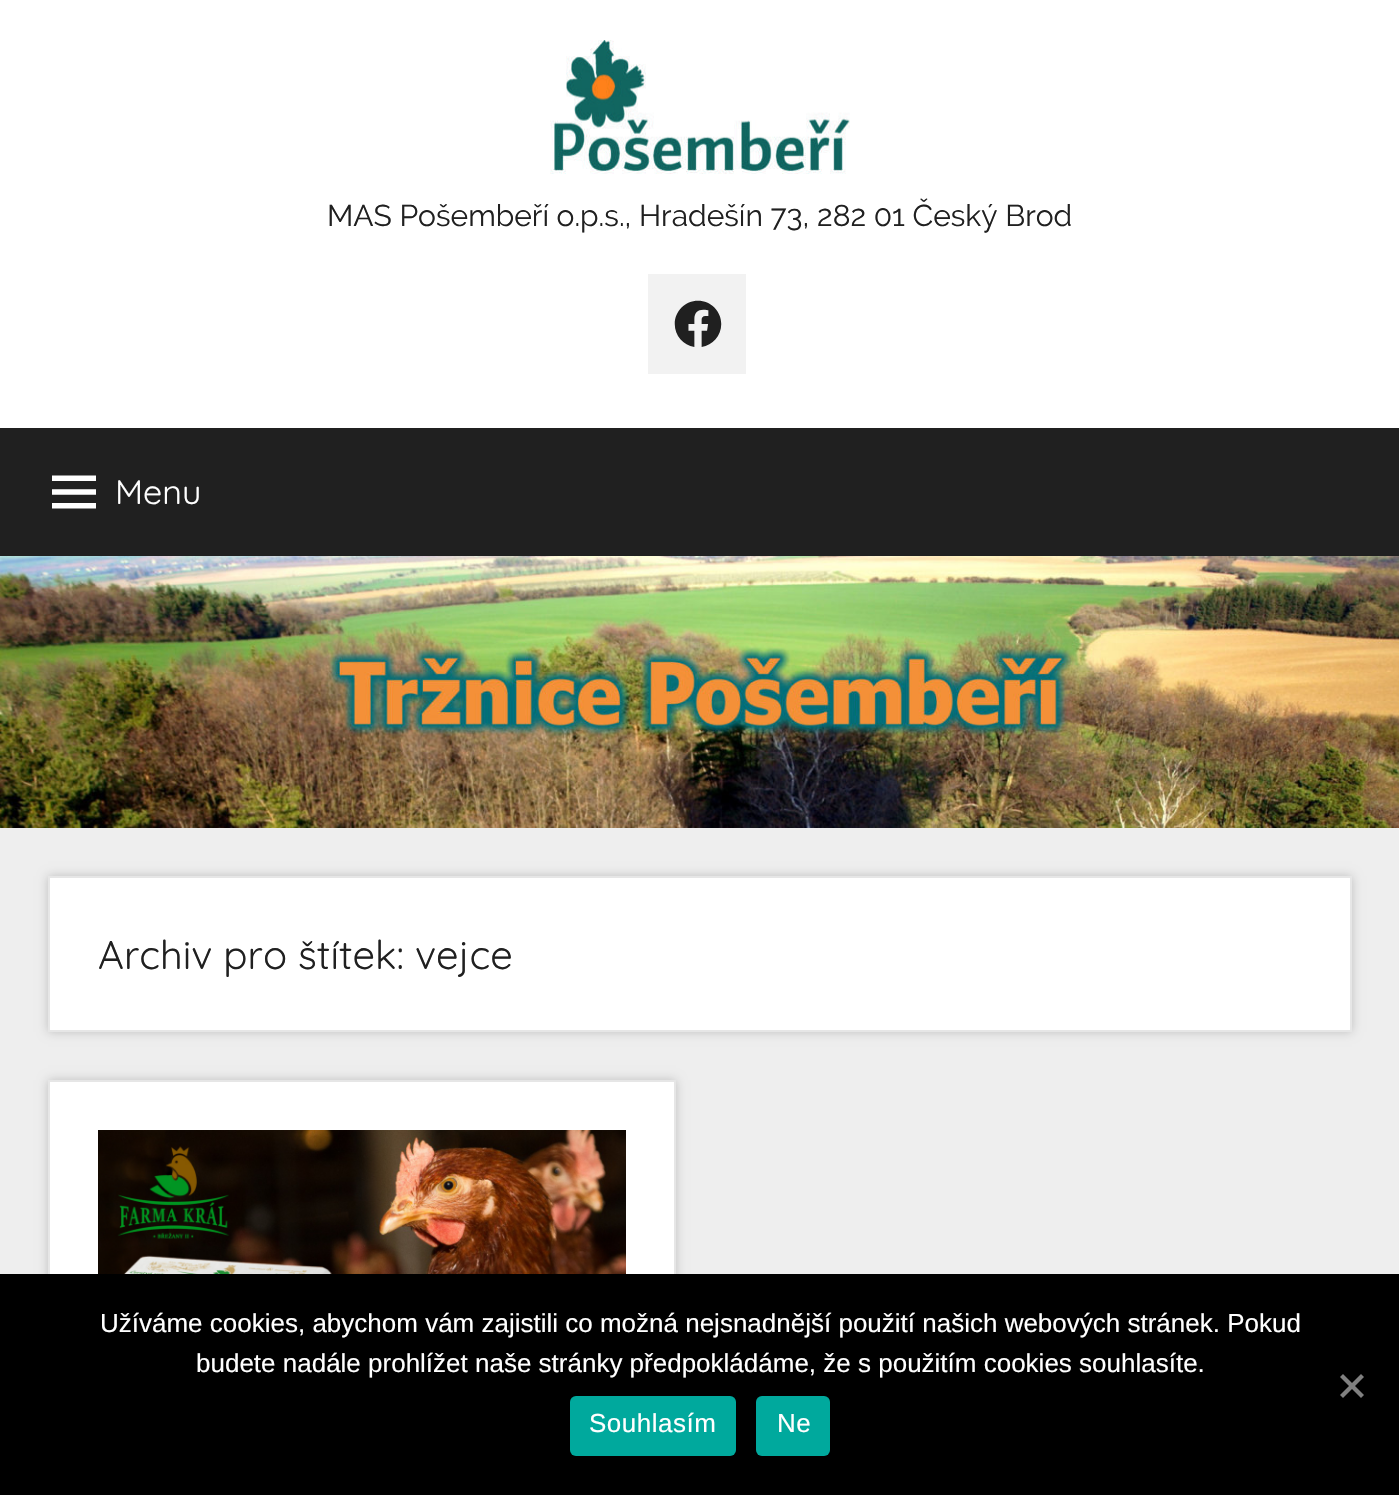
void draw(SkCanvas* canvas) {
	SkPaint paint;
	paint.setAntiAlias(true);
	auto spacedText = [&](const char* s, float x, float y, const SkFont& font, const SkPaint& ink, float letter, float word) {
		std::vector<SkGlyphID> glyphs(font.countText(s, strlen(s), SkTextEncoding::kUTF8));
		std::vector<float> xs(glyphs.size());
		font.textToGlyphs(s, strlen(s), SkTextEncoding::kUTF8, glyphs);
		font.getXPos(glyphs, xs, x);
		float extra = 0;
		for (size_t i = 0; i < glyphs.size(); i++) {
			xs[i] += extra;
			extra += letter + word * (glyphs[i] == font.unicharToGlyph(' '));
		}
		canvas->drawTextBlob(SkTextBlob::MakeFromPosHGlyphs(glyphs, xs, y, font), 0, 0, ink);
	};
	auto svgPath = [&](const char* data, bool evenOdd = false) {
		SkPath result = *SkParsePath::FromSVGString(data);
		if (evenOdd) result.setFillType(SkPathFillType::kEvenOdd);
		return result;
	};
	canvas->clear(0xffeeeeee);
	paint.setColor(0xffffffff);
	canvas->drawRect(SkRect::MakeXYWH(0, 0, 1399, 428), paint);
	canvas->drawImageRect(SkImages::DeferredFromEncodedData(SkData::MakeFromFileName("img1.png")), SkRect::MakeXYWH(550, 40, 300, 134), SkSamplingOptions());
	SkFont f1(fontMgr->matchFamilyStyle("Raleway", SkFontStyle::Normal()), 30);
	f1.setSubpixel(true);
	paint.setColor(0xff202020);
	canvas->drawString("MAS Pošembeří o.p.s., Hradešín 73, 282 01 Český Brod", 327, 226, f1, paint);
	paint.setColor(0xfff2f2f2);
	canvas->drawRect(SkRect::MakeXYWH(648, 274, 98, 100), paint);
	canvas->drawImageRect(SkImages::DeferredFromEncodedData(SkData::MakeFromFileName("img2.png")), SkRect::MakeXYWH(674, 300, 48, 47), SkSamplingOptions());
	paint.setColor(0xff202020);
	canvas->drawRect(SkRect::MakeXYWH(0, 428, 1399, 128), paint);
	canvas->drawImageRect(SkImages::DeferredFromEncodedData(SkData::MakeFromFileName("img3.png")), SkRect::MakeXYWH(52, 475, 44, 34), SkSamplingOptions());
	SkFont f2(fontMgr->matchFamilyStyle("Quicksand", SkFontStyle::Normal()), 34);
	f2.setSubpixel(true);
	paint.setColor(0xffffffff);
	canvas->drawString("Menu", 115, 504, f2, paint);
	canvas->drawImageRect(SkImages::DeferredFromEncodedData(SkData::MakeFromFileName("img4.png")), SkRect::MakeXYWH(0, 556, 1399, 272), SkSamplingOptions());
	paint.setColor(0x33000000);
	paint.setMaskFilter(SkMaskFilter::MakeBlur(kNormal_SkBlurStyle, 5));
	canvas->drawRect(SkRect::MakeXYWH(48, 876, 1304, 156), paint);
	paint.setMaskFilter(nullptr);
	paint.setColor(0xffffffff);
	canvas->drawRect(SkRect::MakeXYWH(49, 877, 1302, 154), paint);
	paint.setStroke(true);
	paint.setStrokeWidth(2);
	paint.setColor(0xffe6e6e6);
	canvas->drawRect(SkRect::MakeXYWH(49, 877, 1302, 154), paint);
	SkFont f3(fontMgr->matchFamilyStyle("Quicksand", SkFontStyle::Normal()), 40);
	f3.setSubpixel(true);
	paint.setStroke(false);
	paint.setColor(0xff202020);
	canvas->drawString("Archiv pro štítek: vejce", 98, 969, f3, paint);
	paint.setColor(0x33000000);
	paint.setMaskFilter(SkMaskFilter::MakeBlur(kNormal_SkBlurStyle, 5));
	canvas->drawRect(SkRect::MakeXYWH(48, 1080, 628, 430), paint);
	paint.setMaskFilter(nullptr);
	paint.setColor(0xffffffff);
	canvas->drawRect(SkRect::MakeXYWH(50, 1082, 624, 192), paint);
	paint.setStroke(true);
	paint.setColor(0xffe6e6e6);
	canvas->drawRect(SkRect::MakeXYWH(49, 1081, 626, 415), paint);
	canvas->drawImageRect(SkImages::DeferredFromEncodedData(SkData::MakeFromFileName("img5.png")), SkRect::MakeXYWH(98, 1130, 528, 144), SkSamplingOptions());
	paint.setStroke(false);
	paint.setColor(0xff000000);
	canvas->drawRect(SkRect::MakeXYWH(0, 1274, 1399, 221), paint);
	SkFont f4(fontMgr->matchFamilyStyle("Liberation Sans", SkFontStyle::Normal()), 26);
	f4.setSubpixel(true);
	paint.setColor(0xffffffff);
	canvas->drawString("Užíváme cookies, abychom vám zajistili co možná nejsnadnější použití našich webových stránek. Pokud", 100, 1332, f4, paint);
	canvas->drawString("budete nadále prohlížet naše stránky předpokládáme, že s použitím cookies souhlasíte.", 196, 1372, f4, paint);
	paint.setColor(0xff808080);
	canvas->drawPath(svgPath("M1361 1374L1364 1377L1343 1398L1340 1395Z"), paint);
	canvas->drawPath(svgPath("M1340 1377L1343 1374L1364 1395L1361 1398Z"), paint);
	paint.setColor(0xff00a99d);
	canvas->drawRoundRect(SkRect::MakeXYWH(570, 1396, 166, 60), 6, 6, paint);
	paint.setColor(0xffffffff);
	spacedText("Souhlasím", 589, 1432, f4, paint, 0.5, 0);
	paint.setColor(0xff00a99d);
	canvas->drawRoundRect(SkRect::MakeXYWH(756, 1396, 74, 60), 6, 6, paint);
	paint.setColor(0xffffffff);
	spacedText("Ne", 777, 1432, f4, paint, 0.5, 0);
}
